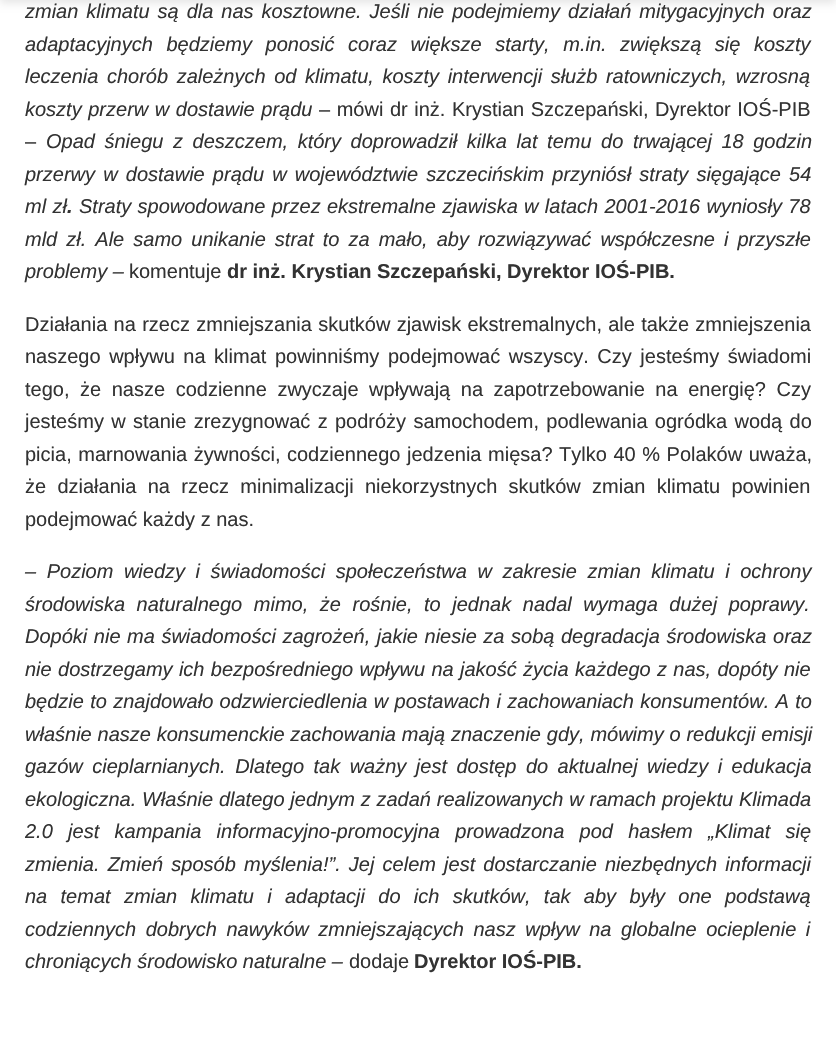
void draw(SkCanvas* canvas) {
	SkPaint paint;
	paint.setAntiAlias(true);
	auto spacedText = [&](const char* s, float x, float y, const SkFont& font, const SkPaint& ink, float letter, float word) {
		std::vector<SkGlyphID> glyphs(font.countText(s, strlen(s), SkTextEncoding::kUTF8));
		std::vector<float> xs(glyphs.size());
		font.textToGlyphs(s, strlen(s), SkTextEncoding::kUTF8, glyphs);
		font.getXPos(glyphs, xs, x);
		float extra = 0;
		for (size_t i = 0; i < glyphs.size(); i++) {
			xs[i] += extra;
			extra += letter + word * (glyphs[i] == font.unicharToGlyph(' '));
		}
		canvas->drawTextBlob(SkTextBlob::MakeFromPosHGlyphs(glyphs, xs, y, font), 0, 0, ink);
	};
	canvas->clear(0xffffffff);
	paint.setColor(0x1a000000);
	paint.setMaskFilter(SkMaskFilter::MakeBlur(kNormal_SkBlurStyle, 4));
	canvas->drawRect(SkRect::MakeXYWH(0, -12, 836, 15), paint);
	paint.setMaskFilter(nullptr);
	SkFont f1(fontMgr->matchFamilyStyle("Liberation Sans", SkFontStyle::Italic()), 20);
	f1.setSubpixel(true);
	paint.setColor(0xff333333);
	spacedText("zmian klimatu są dla nas kosztowne. Jeśli nie podejmiemy działań mitygacyjnych oraz", 25, 18, f1, paint, 0, 2.4);
	spacedText("adaptacyjnych będziemy ponosić coraz większe starty, m.in. zwiększą się koszty", 25, 51, f1, paint, 0, 8);
	spacedText("leczenia chorób zależnych od klimatu, koszty interwencji służb ratowniczych, wzrosną", 25, 83, f1, paint, 0, 3);
	spacedText("koszty przerw w dostawie prądu", 25, 116, f1, paint, 0, 1);
	SkFont f2(fontMgr->matchFamilyStyle("Liberation Sans", SkFontStyle::Normal()), 20);
	f2.setSubpixel(true);
	spacedText("– mówi dr inż. Krystian Szczepański, Dyrektor IOŚ-PIB", 319, 116, f2, paint, 0, 1);
	canvas->drawString("–", 25, 148, f2, paint);
	spacedText("Opad śniegu z deszczem, który doprowadził kilka lat temu do trwającej 18 godzin", 46, 148, f1, paint, 0, 4);
	spacedText("przerwy w dostawie prądu w województwie szczecińskim przyniósł straty sięgające 54", 25, 181, f1, paint, 0, 2.6);
	spacedText("ml zł", 25, 213, f1, paint, 0, 0.8);
	SkFont f3(fontMgr->matchFamilyStyle("Liberation Sans", SkFontStyle::BoldItalic()), 20);
	f3.setSubpixel(true);
	canvas->drawString(".", 67, 213, f3, paint);
	spacedText("Straty spowodowane przez ekstremalne zjawiska w latach 2001-2016 wyniosły 78", 79, 213, f1, paint, 0, 0.75);
	spacedText("mld zł. Ale samo unikanie strat to za mało, aby rozwiązywać współczesne i przyszłe", 25, 246, f1, paint, 0, 3.5);
	canvas->drawString("problemy –", 25, 278, f1, paint);
	canvas->drawString("komentuje", 129, 278, f2, paint);
	SkFont f4(fontMgr->matchFamilyStyle("Liberation Sans", SkFontStyle::Bold()), 20);
	f4.setSubpixel(true);
	canvas->drawString("dr inż. Krystian Szczepański, Dyrektor IOŚ-PIB.", 227, 278, f4, paint);
	spacedText("Działania na rzecz zmniejszania skutków zjawisk ekstremalnych, ale także zmniejszenia", 25, 331, f2, paint, 0, 0.75);
	spacedText("naszego wpływu na klimat powinniśmy podejmować wszyscy. Czy jesteśmy świadomi", 25, 363, f2, paint, 0, 3);
	spacedText("tego, że nasze codzienne zwyczaje wpływają na zapotrzebowanie na energię? Czy", 25, 396, f2, paint, 0, 5);
	spacedText("jesteśmy w stanie zrezygnować z podróży samochodem, podlewania ogródka wodą do", 25, 428, f2, paint, 0, 1.75);
	spacedText("picia, marnowania żywności, codziennego jedzenia mięsa? Tylko 40 % Polaków uważa,", 25, 461, f2, paint, 0, 1);
	spacedText("że działania na rzecz minimalizacji niekorzystnych skutków zmian klimatu powinien", 25, 493, f2, paint, 0, 5.75);
	canvas->drawString("podejmować każdy z nas.", 25, 526, f2, paint);
	spacedText("– Poziom wiedzy i świadomości społeczeństwa w zakresie zmian klimatu i ochrony", 25, 578, f1, paint, 0, 5);
	spacedText("środowiska naturalnego mimo, że rośnie, to jednak nadal wymaga dużej poprawy.", 25, 611, f1, paint, 0, 6);
	spacedText("Dopóki nie ma świadomości zagrożeń, jakie niesie za sobą degradacja środowiska oraz", 25, 643, f1, paint, 0, 1);
	spacedText("nie dostrzegamy ich bezpośredniego wpływu na jakość życia każdego z nas, dopóty nie", 25, 676, f1, paint, 0, 0.8);
	spacedText("będzie to znajdowało odzwierciedlenia w postawach i zachowaniach konsumentów. A to", 25, 708, f1, paint, 0, 0.75);
	spacedText("właśnie nasze konsumenckie zachowania mają znaczenie gdy, mówimy o redukcji emisji", 25, 741, f1, paint, 0, 0.25);
	spacedText("gazów cieplarnianych. Dlatego tak ważny jest dostęp do aktualnej wiedzy i edukacja", 25, 773, f1, paint, 0, 3.9);
	spacedText("ekologiczna. Właśnie dlatego jednym z zadań realizowanych w ramach projektu Klimada", 25, 806, f1, paint, 0, 0.25);
	spacedText("2.0 jest kampania informacyjno-promocyjna prowadzona pod hasłem „Klimat się", 25, 838, f1, paint, 0, 9.75);
	spacedText("zmienia. Zmień sposób myślenia!”. Jej celem jest dostarczanie niezbędnych informacji", 25, 871, f1, paint, 0, 2.6);
	spacedText("na temat zmian klimatu i adaptacji do ich skutków, tak aby były one podstawą", 25, 903, f1, paint, 0, 7.75);
	spacedText("codziennych dobrych nawyków zmniejszających nasz wpływ na globalne ocieplenie i", 25, 936, f1, paint, 0, 4);
	canvas->drawString("chroniących środowisko naturalne –", 25, 968, f1, paint);
	canvas->drawString("dodaje", 349, 968, f2, paint);
	canvas->drawString("Dyrektor IOŚ-PIB.", 414, 968, f4, paint);
}
